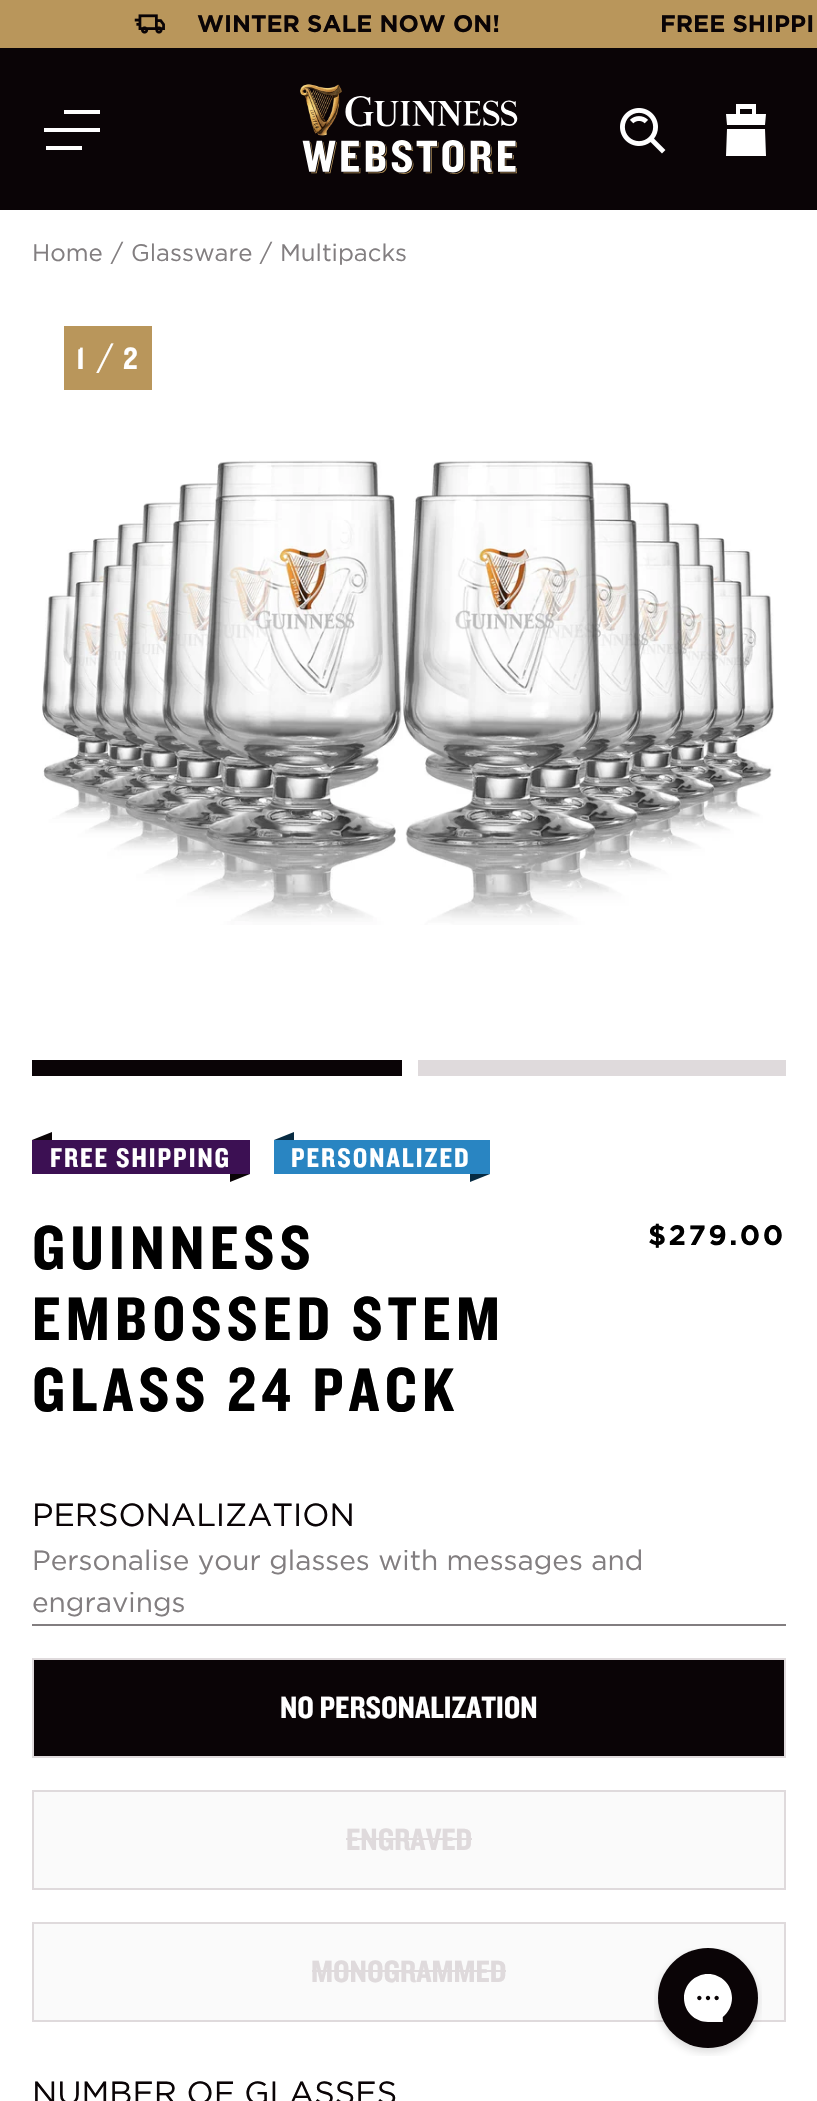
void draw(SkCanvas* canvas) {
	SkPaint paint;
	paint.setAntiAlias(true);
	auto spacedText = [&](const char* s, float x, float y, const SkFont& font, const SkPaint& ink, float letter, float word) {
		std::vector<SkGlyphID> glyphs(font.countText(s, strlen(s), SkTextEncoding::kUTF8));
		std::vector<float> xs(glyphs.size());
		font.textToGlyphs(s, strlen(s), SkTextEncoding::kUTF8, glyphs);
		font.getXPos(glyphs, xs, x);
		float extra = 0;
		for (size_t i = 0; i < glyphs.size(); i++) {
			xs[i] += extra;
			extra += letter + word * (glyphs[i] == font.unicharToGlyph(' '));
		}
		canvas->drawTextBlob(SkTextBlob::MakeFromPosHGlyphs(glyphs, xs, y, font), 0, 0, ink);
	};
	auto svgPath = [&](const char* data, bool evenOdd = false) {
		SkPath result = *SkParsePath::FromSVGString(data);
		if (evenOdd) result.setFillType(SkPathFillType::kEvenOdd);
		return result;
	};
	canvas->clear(0xffffffff);
	paint.setColor(0xffb9965b);
	canvas->drawRect(SkRect::MakeXYWH(0, 0, 817, 48), paint);
	canvas->drawImageRect(SkImages::DeferredFromEncodedData(SkData::MakeFromFileName("img1.png")), SkRect::MakeXYWH(134, 14, 31, 20), SkSamplingOptions());
	SkFont f1(fontMgr->matchFamilyStyle("Gotham", SkFontStyle::Bold()), 24);
	f1.setSubpixel(true);
	paint.setColor(0xff0a0406);
	canvas->drawString("WINTER SALE NOW ON!", 197, 32, f1, paint);
	canvas->drawString("FREE SHIPPI", 660, 32, f1, paint);
	canvas->drawRect(SkRect::MakeXYWH(0, 48, 817, 162), paint);
	paint.setColor(0xffffffff);
	canvas->drawRect(SkRect::MakeXYWH(64, 110, 36, 4), paint);
	canvas->drawRect(SkRect::MakeXYWH(44, 128, 56, 4), paint);
	canvas->drawRect(SkRect::MakeXYWH(46, 146, 36, 4), paint);
	canvas->drawImageRect(SkImages::DeferredFromEncodedData(SkData::MakeFromFileName("img2.png")), SkRect::MakeXYWH(300, 84, 218, 90), SkSamplingOptions());
	canvas->drawImageRect(SkImages::DeferredFromEncodedData(SkData::MakeFromFileName("img3.png")), SkRect::MakeXYWH(620, 108, 46, 46), SkSamplingOptions());
	canvas->drawPath(svgPath("M756 104V114H766L765 125H727L726 114H736V104ZM752 109H740V114H752ZM765 129L766 156H726L727 129Z"), paint);
	SkFont f2(fontMgr->matchFamilyStyle("Gotham", SkFontStyle::Normal()), 24);
	f2.setSubpixel(true);
	paint.setColor(0xff827e80);
	canvas->drawString("Home", 32, 261, f2, paint);
	canvas->drawString("/", 111, 261, f2, paint);
	canvas->drawString("Glassware", 131, 261, f2, paint);
	canvas->drawString("/", 260, 261, f2, paint);
	canvas->drawString("Multipacks", 280, 261, f2, paint);
	paint.setColor(0xffb9965b);
	canvas->drawRect(SkRect::MakeXYWH(64, 326, 88, 64), paint);
	SkFont f3(fontMgr->matchFamilyStyle("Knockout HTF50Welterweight", SkFontStyle(500, SkFontStyle::kNormal_Width, SkFontStyle::kUpright_Slant)), 32);
	f3.setSubpixel(true);
	paint.setColor(0xffffffff);
	spacedText("1", 76, 369, f3, paint, 3, 0);
	SkFont f4(fontMgr->matchFamilyStyle("Gotham", SkFontStyle::Normal()), 32);
	f4.setSubpixel(true);
	canvas->drawString("/", 97, 369, f4, paint);
	spacedText("2", 123, 369, f3, paint, 3, 0);
	canvas->drawImageRect(SkImages::DeferredFromEncodedData(SkData::MakeFromFileName("img4.png")), SkRect::MakeXYWH(42, 460, 732, 465), SkSamplingOptions());
	paint.setColor(0xff0a0406);
	canvas->drawRect(SkRect::MakeXYWH(32, 1060, 370, 16), paint);
	paint.setColor(0xffdfdadc);
	canvas->drawRect(SkRect::MakeXYWH(418, 1060, 368, 16), paint);
	paint.setColor(0xff3c1053);
	canvas->drawRect(SkRect::MakeXYWH(32, 1140, 218, 34), paint);
	paint.setColor(0xff0a0406);
	canvas->drawPath(svgPath("M52 1140H32L52 1132Z"), paint);
	SkFont f5(fontMgr->matchFamilyStyle("Knockout HTF50Welterweight", SkFontStyle(500, SkFontStyle::kNormal_Width, SkFontStyle::kUpright_Slant)), 28);
	f5.setSubpixel(true);
	paint.setColor(0xffffffff);
	spacedText("FREE SHIPPING", 50, 1167, f5, paint, 2, 0);
	paint.setColor(0xff0a0406);
	canvas->drawPath(svgPath("M230 1174H250L230 1182Z"), paint);
	paint.setColor(0xff2985c2);
	canvas->drawRect(SkRect::MakeXYWH(274, 1140, 216, 34), paint);
	paint.setColor(0xff072b42);
	canvas->drawPath(svgPath("M294 1140H274L294 1132Z"), paint);
	paint.setColor(0xffffffff);
	spacedText("PERSONALIZED", 291, 1167, f5, paint, 2, 0);
	paint.setColor(0xff072b42);
	canvas->drawPath(svgPath("M470 1174H490L470 1182Z"), paint);
	SkFont f6(fontMgr->matchFamilyStyle("Knockout HTF50Welterweight", SkFontStyle(500, SkFontStyle::kNormal_Width, SkFontStyle::kUpright_Slant)), 64);
	f6.setSubpixel(true);
	paint.setColor(0xff000000);
	spacedText("GUINNESS", 32, 1269, f6, paint, 5.25, 0);
	spacedText("EMBOSSED STEM", 32, 1340, f6, paint, 5.25, 0);
	spacedText("GLASS 24 PACK", 32, 1411, f6, paint, 5.25, 0);
	SkFont f7(fontMgr->matchFamilyStyle("Gotham", SkFontStyle::Bold()), 28);
	f7.setSubpixel(true);
	spacedText("$279.00", 648, 1245, f7, paint, 2.5, 0);
	paint.setColor(0xff827e80);
	canvas->drawRect(SkRect::MakeXYWH(32, 1624, 754, 2), paint);
	paint.setColor(0xff0a0406);
	canvas->drawString("PERSONALIZATION", 32, 1526, f4, paint);
	SkFont f8(fontMgr->matchFamilyStyle("Gotham", SkFontStyle::Normal()), 28);
	f8.setSubpixel(true);
	paint.setColor(0xff827e80);
	canvas->drawString("Personalise your glasses with messages and", 32, 1570, f8, paint);
	canvas->drawString("engravings", 32, 1612, f8, paint);
	paint.setColor(0xff0a0406);
	canvas->drawRect(SkRect::MakeXYWH(33, 1659, 752, 98), paint);
	paint.setStroke(true);
	paint.setStrokeWidth(2);
	paint.setColor(0xffdfdadc);
	canvas->drawRect(SkRect::MakeXYWH(33, 1659, 752, 98), paint);
	paint.setStroke(false);
	paint.setColor(0xffffffff);
	canvas->drawString("NO PERSONALIZATION", 280, 1718, f3, paint);
	paint.setColor(0xfffafafa);
	canvas->drawRect(SkRect::MakeXYWH(33, 1791, 752, 98), paint);
	paint.setStroke(true);
	paint.setColor(0xffdfdadc);
	canvas->drawRect(SkRect::MakeXYWH(33, 1791, 752, 98), paint);
	paint.setStroke(false);
	canvas->drawString("ENGRAVED", 346, 1850, f3, paint);
	canvas->drawRect(SkRect::MakeXYWH(346, 1838, 126, 2), paint);
	paint.setColor(0xfffafafa);
	canvas->drawRect(SkRect::MakeXYWH(33, 1923, 752, 98), paint);
	paint.setStroke(true);
	paint.setColor(0xffdfdadc);
	canvas->drawRect(SkRect::MakeXYWH(33, 1923, 752, 98), paint);
	paint.setStroke(false);
	canvas->drawString("MONOGRAMMED", 311, 1982, f3, paint);
	canvas->drawRect(SkRect::MakeXYWH(312, 1970, 194, 2), paint);
	paint.setColor(0xff0a0406);
	canvas->drawString("NUMBER OF GLASSES", 32, 2104, f4, paint);
	canvas->drawImageRect(SkImages::DeferredFromEncodedData(SkData::MakeFromFileName("img5.png")), SkRect::MakeXYWH(654, 1948, 108, 108), SkSamplingOptions());
}
